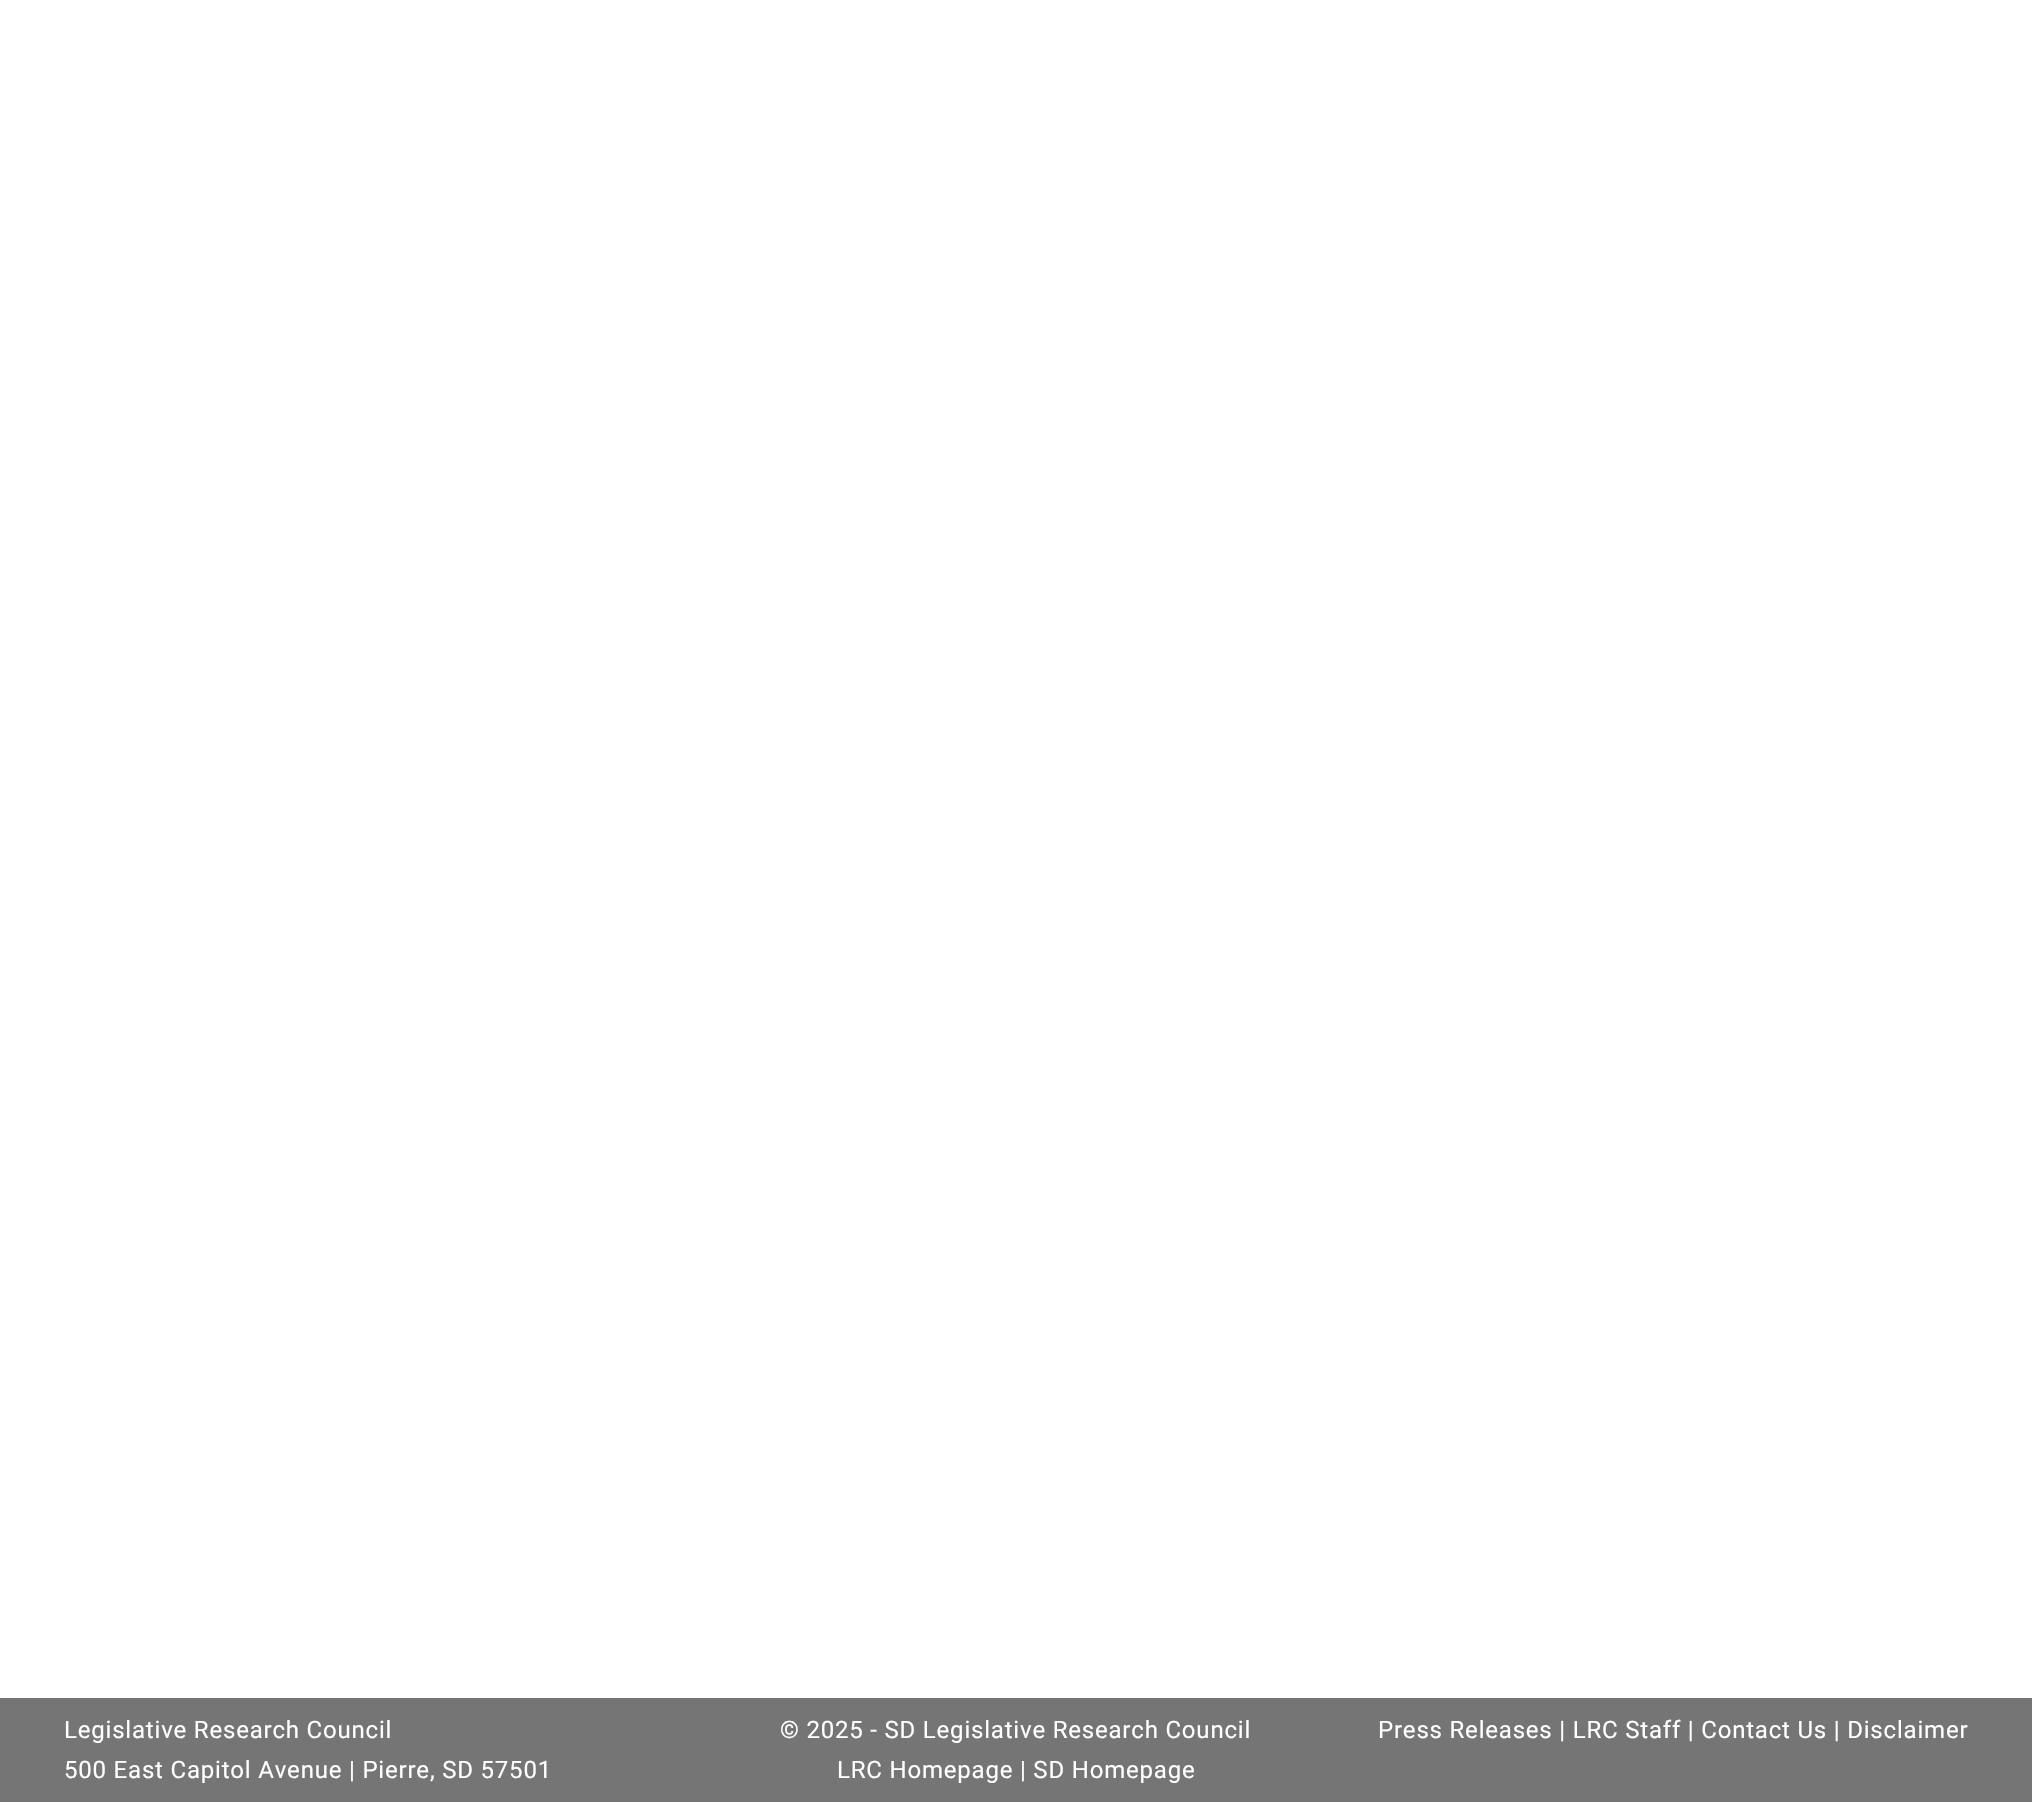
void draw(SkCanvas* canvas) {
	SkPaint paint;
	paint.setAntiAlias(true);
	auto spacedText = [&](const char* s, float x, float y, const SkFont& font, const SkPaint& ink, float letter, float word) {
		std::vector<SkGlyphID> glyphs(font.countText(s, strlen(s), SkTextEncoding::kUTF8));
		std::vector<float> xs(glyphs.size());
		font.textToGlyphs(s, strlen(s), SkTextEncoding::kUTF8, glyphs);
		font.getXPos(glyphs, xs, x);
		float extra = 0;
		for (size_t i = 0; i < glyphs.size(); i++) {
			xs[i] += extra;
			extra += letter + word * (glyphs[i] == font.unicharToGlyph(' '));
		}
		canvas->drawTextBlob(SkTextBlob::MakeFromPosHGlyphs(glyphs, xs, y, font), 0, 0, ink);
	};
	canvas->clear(0xffffffff);
	paint.setColor(0xff757575);
	canvas->drawRect(SkRect::MakeXYWH(0, 1698, 2032, 104), paint);
	SkFont f1(fontMgr->matchFamilyStyle("Roboto", SkFontStyle::Normal()), 24);
	f1.setSubpixel(true);
	paint.setColor(0xffffffff);
	spacedText("Legislative Research Council", 64, 1738, f1, paint, 0.8, 0);
	spacedText("500 East Capitol Avenue | Pierre, SD 57501", 64, 1778, f1, paint, 0.8, 0);
	spacedText("© 2025 - SD Legislative Research Council", 780, 1738, f1, paint, 0.8, 0);
	spacedText("LRC Homepage | SD Homepage", 837, 1778, f1, paint, 0.8, 0);
	spacedText("Press Releases | LRC Staff | Contact Us | Disclaimer", 1378, 1738, f1, paint, 0.8, 0);
}
